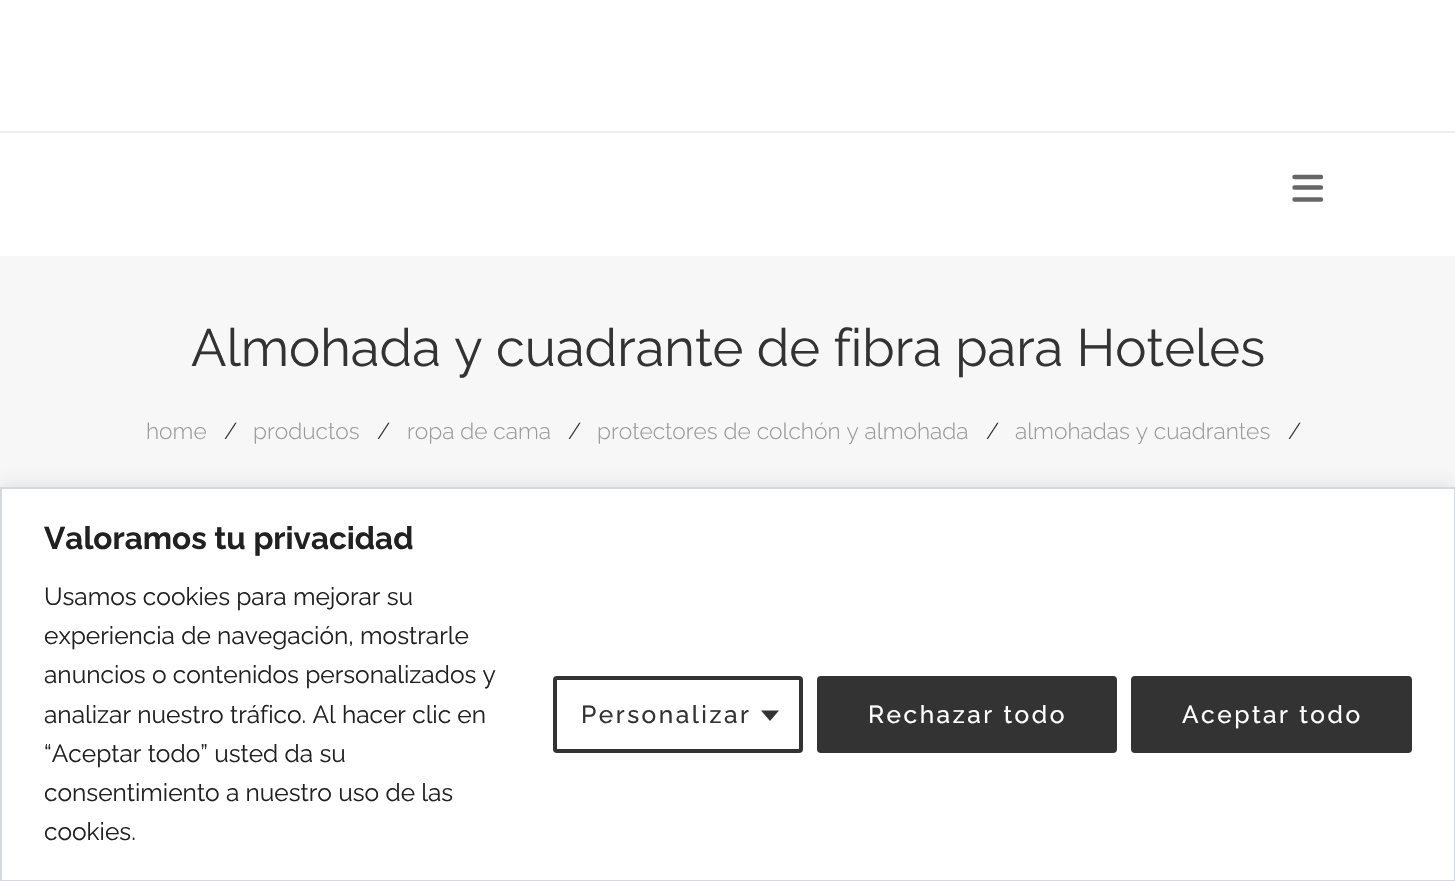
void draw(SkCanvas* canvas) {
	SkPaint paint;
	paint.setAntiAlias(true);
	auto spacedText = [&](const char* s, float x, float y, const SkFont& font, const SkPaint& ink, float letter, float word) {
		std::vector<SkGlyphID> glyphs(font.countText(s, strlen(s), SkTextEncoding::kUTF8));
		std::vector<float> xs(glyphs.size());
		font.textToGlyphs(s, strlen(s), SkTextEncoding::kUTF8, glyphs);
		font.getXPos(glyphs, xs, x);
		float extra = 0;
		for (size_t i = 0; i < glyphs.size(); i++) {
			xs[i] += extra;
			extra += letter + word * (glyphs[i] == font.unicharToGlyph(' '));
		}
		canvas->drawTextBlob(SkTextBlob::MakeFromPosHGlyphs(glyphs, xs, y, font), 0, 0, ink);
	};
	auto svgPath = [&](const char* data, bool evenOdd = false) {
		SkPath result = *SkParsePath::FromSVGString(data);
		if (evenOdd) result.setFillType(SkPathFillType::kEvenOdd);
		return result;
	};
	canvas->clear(0xffffffff);
	paint.setColor(0xffeeeeee);
	canvas->drawRect(SkRect::MakeXYWH(0, 131, 1455, 2), paint);
	paint.setStroke(true);
	paint.setStrokeWidth(4.4);
	paint.setStrokeCap(SkPaint::kRound_Cap);
	paint.setColor(0xff666666);
	canvas->drawPath(svgPath("M1294.5 177H1321M1294.5 187.5H1321M1294.5 199.5H1321"), paint);
	paint.setStroke(false);
	paint.setColor(0xfff7f7f7);
	canvas->drawRect(SkRect::MakeXYWH(0, 256, 1455, 231), paint);
	SkFont f1(fontMgr->matchFamilyStyle("Raleway", SkFontStyle::Normal()), 52.5);
	f1.setSubpixel(true);
	paint.setColor(0xff333333);
	canvas->drawString("Almohada y cuadrante de fibra para Hoteles", 191, 366, f1, paint);
	SkFont f2(fontMgr->matchFamilyStyle("Raleway", SkFontStyle(300, SkFontStyle::kNormal_Width, SkFontStyle::kUpright_Slant)), 22.75);
	f2.setSubpixel(true);
	paint.setColor(0xff999999);
	canvas->drawString("home", 146, 439, f2, paint);
	paint.setColor(0xff333333);
	canvas->drawString("/", 224, 439, f2, paint);
	paint.setColor(0xff999999);
	canvas->drawString("productos", 253, 439, f2, paint);
	paint.setColor(0xff333333);
	canvas->drawString("/", 377, 439, f2, paint);
	paint.setColor(0xff999999);
	canvas->drawString("ropa de cama", 407, 439, f2, paint);
	paint.setColor(0xff333333);
	canvas->drawString("/", 568, 439, f2, paint);
	paint.setColor(0xff999999);
	canvas->drawString("protectores de colchón y almohada", 597, 439, f2, paint);
	paint.setColor(0xff333333);
	canvas->drawString("/", 986, 439, f2, paint);
	paint.setColor(0xff999999);
	canvas->drawString("almohadas y cuadrantes", 1015, 439, f2, paint);
	paint.setColor(0xff333333);
	canvas->drawString("/", 1288, 439, f2, paint);
	paint.setColor(0x4dacabab);
	paint.setMaskFilter(SkMaskFilter::MakeBlur(kNormal_SkBlurStyle, 9));
	canvas->drawRect(SkRect::MakeXYWH(0, 485, 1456, 395), paint);
	paint.setMaskFilter(nullptr);
	paint.setColor(0xffffffff);
	canvas->drawRect(SkRect::MakeXYWH(1, 488, 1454, 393), paint);
	paint.setStroke(true);
	paint.setStrokeWidth(2);
	paint.setStrokeCap(SkPaint::kButt_Cap);
	paint.setColor(0xffd4d8df);
	canvas->drawRect(SkRect::MakeXYWH(1, 488, 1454, 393), paint);
	SkFont f3(fontMgr->matchFamilyStyle("Raleway", SkFontStyle::Bold()), 31.5);
	f3.setSubpixel(true);
	paint.setStroke(false);
	paint.setColor(0xff212121);
	canvas->drawString("Valoramos tu privacidad", 44, 549, f3, paint);
	SkFont f4(fontMgr->matchFamilyStyle("Raleway", SkFontStyle::Normal()), 24.5);
	f4.setSubpixel(true);
	canvas->drawString("Usamos cookies para mejorar su", 44, 605, f4, paint);
	canvas->drawString("experiencia de navegación, mostrarle", 44, 644, f4, paint);
	canvas->drawString("anuncios o contenidos personalizados y", 44, 683, f4, paint);
	canvas->drawString("analizar nuestro tráfico. Al hacer clic en", 44, 723, f4, paint);
	canvas->drawString("“Aceptar todo” usted da su", 44, 762, f4, paint);
	canvas->drawString("consentimiento a nuestro uso de las", 44, 801, f4, paint);
	canvas->drawString("cookies.", 44, 840, f4, paint);
	paint.setStroke(true);
	paint.setStrokeWidth(4);
	paint.setColor(0xff333333);
	canvas->drawRoundRect(SkRect::MakeXYWH(555, 678, 246, 73), 2, 2, paint);
	SkFont f5(fontMgr->matchFamilyStyle("Raleway", SkFontStyle(500, SkFontStyle::kNormal_Width, SkFontStyle::kUpright_Slant)), 24.5);
	f5.setSubpixel(true);
	paint.setStroke(false);
	spacedText("Personalizar", 581, 723, f5, paint, 2.5, 0);
	canvas->drawPath(svgPath("M761 710.5H779L770 721Z"), paint);
	canvas->drawRoundRect(SkRect::MakeXYWH(819, 678, 296, 73), 2, 2, paint);
	paint.setStroke(true);
	canvas->drawRoundRect(SkRect::MakeXYWH(819, 678, 296, 73), 2, 2, paint);
	paint.setStroke(false);
	paint.setColor(0xffffffff);
	spacedText("Rechazar todo", 868, 723, f5, paint, 2.5, 0);
	paint.setColor(0xff333333);
	canvas->drawRoundRect(SkRect::MakeXYWH(1133, 678, 277, 73), 2, 2, paint);
	paint.setStroke(true);
	canvas->drawRoundRect(SkRect::MakeXYWH(1133, 678, 277, 73), 2, 2, paint);
	paint.setStroke(false);
	paint.setColor(0xffffffff);
	spacedText("Aceptar todo", 1182, 723, f5, paint, 2.5, 0);
}
